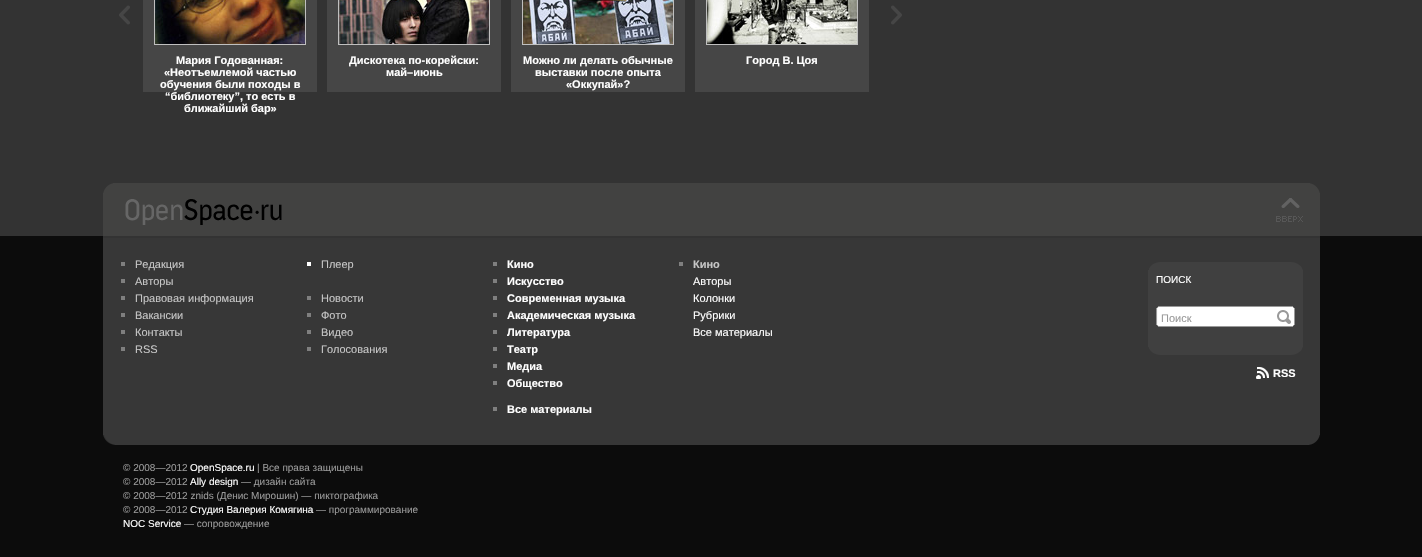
void draw(SkCanvas* canvas) {
	SkPaint paint;
	paint.setAntiAlias(true);
	canvas->clear(0xff333333);
	canvas->drawImageRect(SkImages::DeferredFromEncodedData(SkData::MakeFromFileName("img1.png")), SkRect::MakeXYWH(119, 5, 11, 20), SkSamplingOptions());
	canvas->drawImageRect(SkImages::DeferredFromEncodedData(SkData::MakeFromFileName("img2.png")), SkRect::MakeXYWH(891, 5, 11, 20), SkSamplingOptions());
	paint.setColor(0xff464646);
	canvas->drawRect(SkRect::MakeXYWH(143, 0, 174, 92), paint);
	paint.setStroke(true);
	paint.setStrokeWidth(1);
	paint.setColor(0xffbfbfbf);
	canvas->drawRect(SkRect::MakeXYWH(154.5, -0.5, 151, 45), paint);
	canvas->drawImageRect(SkImages::DeferredFromEncodedData(SkData::MakeFromFileName("img3.png")), SkRect::MakeXYWH(155, 0, 150, 44), SkSamplingOptions());
	SkFont f1(fontMgr->matchFamilyStyle("Liberation Sans", SkFontStyle::Bold()), 11);
	f1.setSubpixel(true);
	paint.setStroke(false);
	paint.setColor(0xffffffff);
	canvas->drawString("Мария Годованная:", 176, 64, f1, paint);
	canvas->drawString("«Неотъемлемой частью", 164, 76, f1, paint);
	canvas->drawString("обучения были походы в", 160, 88, f1, paint);
	canvas->drawString("“библиотеку”, то есть в", 165, 100, f1, paint);
	canvas->drawString("ближайший бар»", 184, 112, f1, paint);
	paint.setColor(0xff464646);
	canvas->drawRect(SkRect::MakeXYWH(327, 0, 174, 92), paint);
	paint.setStroke(true);
	paint.setColor(0xffbfbfbf);
	canvas->drawRect(SkRect::MakeXYWH(338.5, -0.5, 151, 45), paint);
	canvas->drawImageRect(SkImages::DeferredFromEncodedData(SkData::MakeFromFileName("img4.png")), SkRect::MakeXYWH(339, 0, 150, 44), SkSamplingOptions());
	paint.setStroke(false);
	paint.setColor(0xffffffff);
	canvas->drawString("Дискотека по-корейски:", 349, 64, f1, paint);
	canvas->drawString("май–июнь", 386, 76, f1, paint);
	paint.setColor(0xff464646);
	canvas->drawRect(SkRect::MakeXYWH(511, 0, 174, 92), paint);
	paint.setStroke(true);
	paint.setColor(0xffbfbfbf);
	canvas->drawRect(SkRect::MakeXYWH(522.5, -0.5, 151, 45), paint);
	canvas->drawImageRect(SkImages::DeferredFromEncodedData(SkData::MakeFromFileName("img5.png")), SkRect::MakeXYWH(523, 0, 150, 44), SkSamplingOptions());
	paint.setStroke(false);
	paint.setColor(0xffffffff);
	canvas->drawString("Можно ли делать обычные", 523, 64, f1, paint);
	canvas->drawString("выставки после опыта", 535, 76, f1, paint);
	canvas->drawString("«Оккупай»?", 566, 88, f1, paint);
	paint.setColor(0xff464646);
	canvas->drawRect(SkRect::MakeXYWH(695, 0, 174, 92), paint);
	paint.setStroke(true);
	paint.setColor(0xffbfbfbf);
	canvas->drawRect(SkRect::MakeXYWH(706.5, -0.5, 151, 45), paint);
	canvas->drawImageRect(SkImages::DeferredFromEncodedData(SkData::MakeFromFileName("img6.png")), SkRect::MakeXYWH(707, 0, 150, 44), SkSamplingOptions());
	paint.setStroke(false);
	paint.setColor(0xffffffff);
	canvas->drawString("Город В. Цоя", 746, 64, f1, paint);
	paint.setColor(0xff424241);
	canvas->drawRect(SkRect::MakeXYWH(103, 183, 1217, 53), paint);
	canvas->drawImageRect(SkImages::DeferredFromEncodedData(SkData::MakeFromFileName("img7.png")), SkRect::MakeXYWH(103, 183, 10, 10), SkSamplingOptions());
	canvas->drawImageRect(SkImages::DeferredFromEncodedData(SkData::MakeFromFileName("img8.png")), SkRect::MakeXYWH(1310, 183, 10, 10), SkSamplingOptions());
	canvas->drawImageRect(SkImages::DeferredFromEncodedData(SkData::MakeFromFileName("img9.png")), SkRect::MakeXYWH(125, 199, 157, 26), SkSamplingOptions());
	canvas->drawImageRect(SkImages::DeferredFromEncodedData(SkData::MakeFromFileName("img10.png")), SkRect::MakeXYWH(1276, 198, 27, 24), SkSamplingOptions());
	paint.setColor(0xff0c0c0c);
	canvas->drawRect(SkRect::MakeXYWH(0, 236, 1422, 321), paint);
	paint.setColor(0xff373737);
	canvas->drawRect(SkRect::MakeXYWH(103, 238, 1217, 207), paint);
	canvas->drawImageRect(SkImages::DeferredFromEncodedData(SkData::MakeFromFileName("img11.png")), SkRect::MakeXYWH(1309, 435, 11, 10), SkSamplingOptions());
	canvas->drawImageRect(SkImages::DeferredFromEncodedData(SkData::MakeFromFileName("img12.png")), SkRect::MakeXYWH(103, 435, 12, 10), SkSamplingOptions());
	paint.setColor(0xff333333);
	canvas->drawRect(SkRect::MakeXYWH(103, 236, 1217, 2), paint);
	SkFont f2(fontMgr->matchFamilyStyle("Liberation Sans", SkFontStyle::Normal()), 11);
	f2.setSubpixel(true);
	paint.setColor(0xffc6c6c6);
	canvas->drawString("Редакция", 135, 268, f2, paint);
	paint.setColor(0xff7f7f7f);
	canvas->drawRect(SkRect::MakeXYWH(121, 262, 4, 4), paint);
	paint.setColor(0xffc6c6c6);
	canvas->drawString("Авторы", 135, 285, f2, paint);
	paint.setColor(0xff7f7f7f);
	canvas->drawRect(SkRect::MakeXYWH(121, 279, 4, 4), paint);
	paint.setColor(0xffc6c6c6);
	canvas->drawString("Правовая информация", 135, 302, f2, paint);
	paint.setColor(0xff7f7f7f);
	canvas->drawRect(SkRect::MakeXYWH(121, 296, 4, 4), paint);
	paint.setColor(0xffc6c6c6);
	canvas->drawString("Вакансии", 135, 319, f2, paint);
	paint.setColor(0xff7f7f7f);
	canvas->drawRect(SkRect::MakeXYWH(121, 313, 4, 4), paint);
	paint.setColor(0xffc6c6c6);
	canvas->drawString("Контакты", 135, 336, f2, paint);
	paint.setColor(0xff7f7f7f);
	canvas->drawRect(SkRect::MakeXYWH(121, 330, 4, 4), paint);
	paint.setColor(0xffc6c6c6);
	canvas->drawString("RSS", 135, 353, f2, paint);
	paint.setColor(0xff7f7f7f);
	canvas->drawRect(SkRect::MakeXYWH(121, 347, 4, 4), paint);
	paint.setColor(0xffc6c6c6);
	canvas->drawString("Плеер", 321, 268, f2, paint);
	paint.setColor(0xffffffff);
	canvas->drawRect(SkRect::MakeXYWH(307, 262, 4, 4), paint);
	paint.setColor(0xffc6c6c6);
	canvas->drawString("Новости", 321, 302, f2, paint);
	paint.setColor(0xff7f7f7f);
	canvas->drawRect(SkRect::MakeXYWH(307, 296, 4, 4), paint);
	paint.setColor(0xffc6c6c6);
	canvas->drawString("Фото", 321, 319, f2, paint);
	paint.setColor(0xff7f7f7f);
	canvas->drawRect(SkRect::MakeXYWH(307, 313, 4, 4), paint);
	paint.setColor(0xffc6c6c6);
	canvas->drawString("Видео", 321, 336, f2, paint);
	paint.setColor(0xff7f7f7f);
	canvas->drawRect(SkRect::MakeXYWH(307, 330, 4, 4), paint);
	paint.setColor(0xffc6c6c6);
	canvas->drawString("Голосования", 321, 353, f2, paint);
	paint.setColor(0xff7f7f7f);
	canvas->drawRect(SkRect::MakeXYWH(307, 347, 4, 4), paint);
	paint.setColor(0xffffffff);
	canvas->drawString("Кино", 507, 268, f1, paint);
	paint.setColor(0xff7f7f7f);
	canvas->drawRect(SkRect::MakeXYWH(493, 262, 4, 4), paint);
	paint.setColor(0xffffffff);
	canvas->drawString("Искусство", 507, 285, f1, paint);
	paint.setColor(0xff7f7f7f);
	canvas->drawRect(SkRect::MakeXYWH(493, 279, 4, 4), paint);
	paint.setColor(0xffffffff);
	canvas->drawString("Современная музыка", 507, 302, f1, paint);
	paint.setColor(0xff7f7f7f);
	canvas->drawRect(SkRect::MakeXYWH(493, 296, 4, 4), paint);
	paint.setColor(0xffffffff);
	canvas->drawString("Академическая музыка", 507, 319, f1, paint);
	paint.setColor(0xff7f7f7f);
	canvas->drawRect(SkRect::MakeXYWH(493, 313, 4, 4), paint);
	paint.setColor(0xffffffff);
	canvas->drawString("Литература", 507, 336, f1, paint);
	paint.setColor(0xff7f7f7f);
	canvas->drawRect(SkRect::MakeXYWH(493, 330, 4, 4), paint);
	paint.setColor(0xffffffff);
	canvas->drawString("Театр", 507, 353, f1, paint);
	paint.setColor(0xff7f7f7f);
	canvas->drawRect(SkRect::MakeXYWH(493, 347, 4, 4), paint);
	paint.setColor(0xffffffff);
	canvas->drawString("Медиа", 507, 370, f1, paint);
	paint.setColor(0xff7f7f7f);
	canvas->drawRect(SkRect::MakeXYWH(493, 364, 4, 4), paint);
	paint.setColor(0xffffffff);
	canvas->drawString("Общество", 507, 387, f1, paint);
	paint.setColor(0xff7f7f7f);
	canvas->drawRect(SkRect::MakeXYWH(493, 381, 4, 4), paint);
	paint.setColor(0xffffffff);
	canvas->drawString("Все материалы", 507, 413, f1, paint);
	paint.setColor(0xff7f7f7f);
	canvas->drawRect(SkRect::MakeXYWH(493, 407, 4, 4), paint);
	paint.setColor(0xffc6c6c6);
	canvas->drawString("Кино", 693, 268, f1, paint);
	paint.setColor(0xff7f7f7f);
	canvas->drawRect(SkRect::MakeXYWH(679, 262, 4, 4), paint);
	paint.setColor(0xffffffff);
	canvas->drawString("Авторы", 693, 285, f2, paint);
	canvas->drawString("Колонки", 693, 302, f2, paint);
	canvas->drawString("Рубрики", 693, 319, f2, paint);
	canvas->drawString("Все материалы", 693, 336, f2, paint);
	canvas->drawImageRect(SkImages::DeferredFromEncodedData(SkData::MakeFromFileName("img13.png")), SkRect::MakeXYWH(1149, 262, 154, 8), SkSamplingOptions());
	paint.setColor(0xff404040);
	canvas->drawRect(SkRect::MakeXYWH(1148, 270, 155, 77), paint);
	canvas->drawImageRect(SkImages::DeferredFromEncodedData(SkData::MakeFromFileName("img14.png")), SkRect::MakeXYWH(1148, 347, 155, 8), SkSamplingOptions());
	SkFont f3(fontMgr->matchFamilyStyle("Liberation Sans", SkFontStyle::Normal()), 10);
	f3.setSubpixel(true);
	paint.setColor(0xffffffff);
	canvas->drawString("ПОИСК", 1156, 283, f3, paint);
	canvas->drawImageRect(SkImages::DeferredFromEncodedData(SkData::MakeFromFileName("img15.png")), SkRect::MakeXYWH(1156, 306, 121, 21), SkSamplingOptions());
	paint.setColor(0xff999999);
	canvas->drawString("Поиск", 1161, 322, f2, paint);
	canvas->drawImageRect(SkImages::DeferredFromEncodedData(SkData::MakeFromFileName("img16.png")), SkRect::MakeXYWH(1277, 306, 18, 21), SkSamplingOptions());
	canvas->drawImageRect(SkImages::DeferredFromEncodedData(SkData::MakeFromFileName("img17.png")), SkRect::MakeXYWH(1256, 367, 13, 12), SkSamplingOptions());
	paint.setColor(0xffffffff);
	canvas->drawString("RSS", 1273, 377, f1, paint);
	paint.setColor(0xff999999);
	canvas->drawString("© 2008—2012", 123, 471, f3, paint);
	paint.setColor(0xffffffff);
	canvas->drawString("OpenSpace.ru", 190, 471, f3, paint);
	paint.setColor(0xff999999);
	canvas->drawString("| Все права защищены", 257, 471, f3, paint);
	canvas->drawString("© 2008—2012", 123, 485, f3, paint);
	paint.setColor(0xffffffff);
	canvas->drawString("Ally design", 190, 485, f3, paint);
	paint.setColor(0xff999999);
	canvas->drawString("— дизайн сайта", 241, 485, f3, paint);
	canvas->drawString("© 2008—2012 znids (Денис Мирошин) — пиктографика", 123, 499, f3, paint);
	canvas->drawString("© 2008—2012", 123, 513, f3, paint);
	paint.setColor(0xffffffff);
	canvas->drawString("Студия Валерия Комягина", 190, 513, f3, paint);
	paint.setColor(0xff999999);
	canvas->drawString("— программирование", 316, 513, f3, paint);
	paint.setColor(0xffffffff);
	canvas->drawString("NOC Service", 123, 527, f3, paint);
	paint.setColor(0xff999999);
	canvas->drawString("— сопровождение", 184, 527, f3, paint);
}
